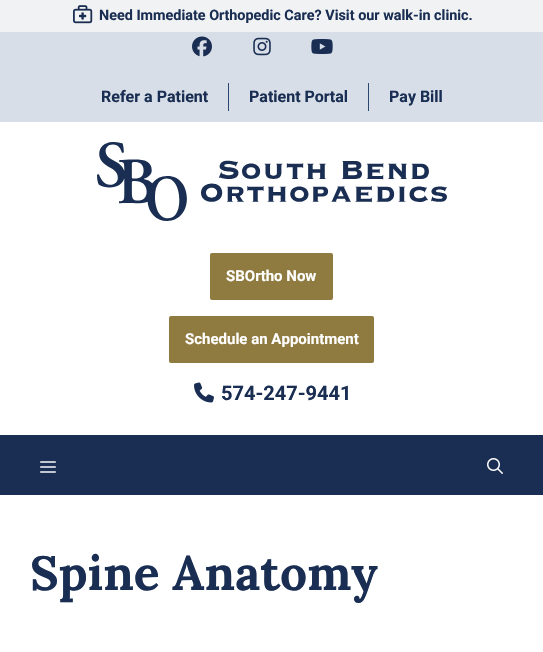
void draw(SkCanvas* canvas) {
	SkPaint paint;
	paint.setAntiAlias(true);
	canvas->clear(0xffffffff);
	paint.setColor(0xfff1f2f4);
	canvas->drawRect(SkRect::MakeXYWH(0, 0, 543, 32), paint);
	canvas->drawImageRect(SkImages::DeferredFromEncodedData(SkData::MakeFromFileName("img1.png")), SkRect::MakeXYWH(73, 5, 20, 19), SkSamplingOptions());
	SkFont f1(fontMgr->matchFamilyStyle("Roboto", SkFontStyle::Bold()), 14.4);
	f1.setSubpixel(true);
	paint.setColor(0xff192e52);
	canvas->drawString("Need Immediate Orthopedic Care? Visit our walk-in clinic.", 99, 20, f1, paint);
	paint.setColor(0xffd7dee7);
	canvas->drawRect(SkRect::MakeXYWH(0, 32, 543, 90), paint);
	canvas->drawImageRect(SkImages::DeferredFromEncodedData(SkData::MakeFromFileName("img2.png")), SkRect::MakeXYWH(192, 36, 20, 21), SkSamplingOptions());
	canvas->drawImageRect(SkImages::DeferredFromEncodedData(SkData::MakeFromFileName("img3.png")), SkRect::MakeXYWH(253, 37, 18, 19), SkSamplingOptions());
	canvas->drawImageRect(SkImages::DeferredFromEncodedData(SkData::MakeFromFileName("img4.png")), SkRect::MakeXYWH(311, 39, 22, 15), SkSamplingOptions());
	SkFont f2(fontMgr->matchFamilyStyle("Roboto", SkFontStyle::Bold()), 16);
	f2.setSubpixel(true);
	paint.setColor(0xff192e52);
	canvas->drawString("Refer a Patient", 101, 102, f2, paint);
	paint.setColor(0xff2a476f);
	canvas->drawRect(SkRect::MakeXYWH(228, 83, 1, 28), paint);
	paint.setColor(0xff192e52);
	canvas->drawString("Patient Portal", 249, 102, f2, paint);
	paint.setColor(0xff2a476f);
	canvas->drawRect(SkRect::MakeXYWH(368, 83, 1, 28), paint);
	paint.setColor(0xff192e52);
	canvas->drawString("Pay Bill", 389, 102, f2, paint);
	canvas->drawImageRect(SkImages::DeferredFromEncodedData(SkData::MakeFromFileName("img5.png")), SkRect::MakeXYWH(97, 142, 350, 79), SkSamplingOptions());
	paint.setColor(0xff8f7b40);
	canvas->drawRoundRect(SkRect::MakeXYWH(210, 253, 123, 47), 2, 2, paint);
	SkFont f3(fontMgr->matchFamilyStyle("Roboto", SkFontStyle::Bold()), 15);
	f3.setSubpixel(true);
	paint.setColor(0xffffffff);
	canvas->drawString("SBOrtho Now", 226, 281, f3, paint);
	paint.setColor(0xff8f7b40);
	canvas->drawRoundRect(SkRect::MakeXYWH(169, 316, 205, 47), 2, 2, paint);
	paint.setColor(0xffffffff);
	canvas->drawString("Schedule an Appointment", 185, 344, f3, paint);
	canvas->drawImageRect(SkImages::DeferredFromEncodedData(SkData::MakeFromFileName("img6.png")), SkRect::MakeXYWH(194, 382, 20, 21), SkSamplingOptions());
	SkFont f4(fontMgr->matchFamilyStyle("Roboto", SkFontStyle::Bold()), 20);
	f4.setSubpixel(true);
	paint.setColor(0xff192e52);
	canvas->drawString("574-247-9441", 221, 400, f4, paint);
	canvas->drawRect(SkRect::MakeXYWH(0, 435, 543, 60), paint);
	canvas->drawImageRect(SkImages::DeferredFromEncodedData(SkData::MakeFromFileName("img7.png")), SkRect::MakeXYWH(40, 461, 16, 12), SkSamplingOptions());
	canvas->drawImageRect(SkImages::DeferredFromEncodedData(SkData::MakeFromFileName("img8.png")), SkRect::MakeXYWH(487, 458, 16, 16), SkSamplingOptions());
	SkFont f5(fontMgr->matchFamilyStyle("Lora", SkFontStyle::Bold()), 48);
	f5.setSubpixel(true);
	canvas->drawString("Spine Anatomy", 30, 590, f5, paint);
}
